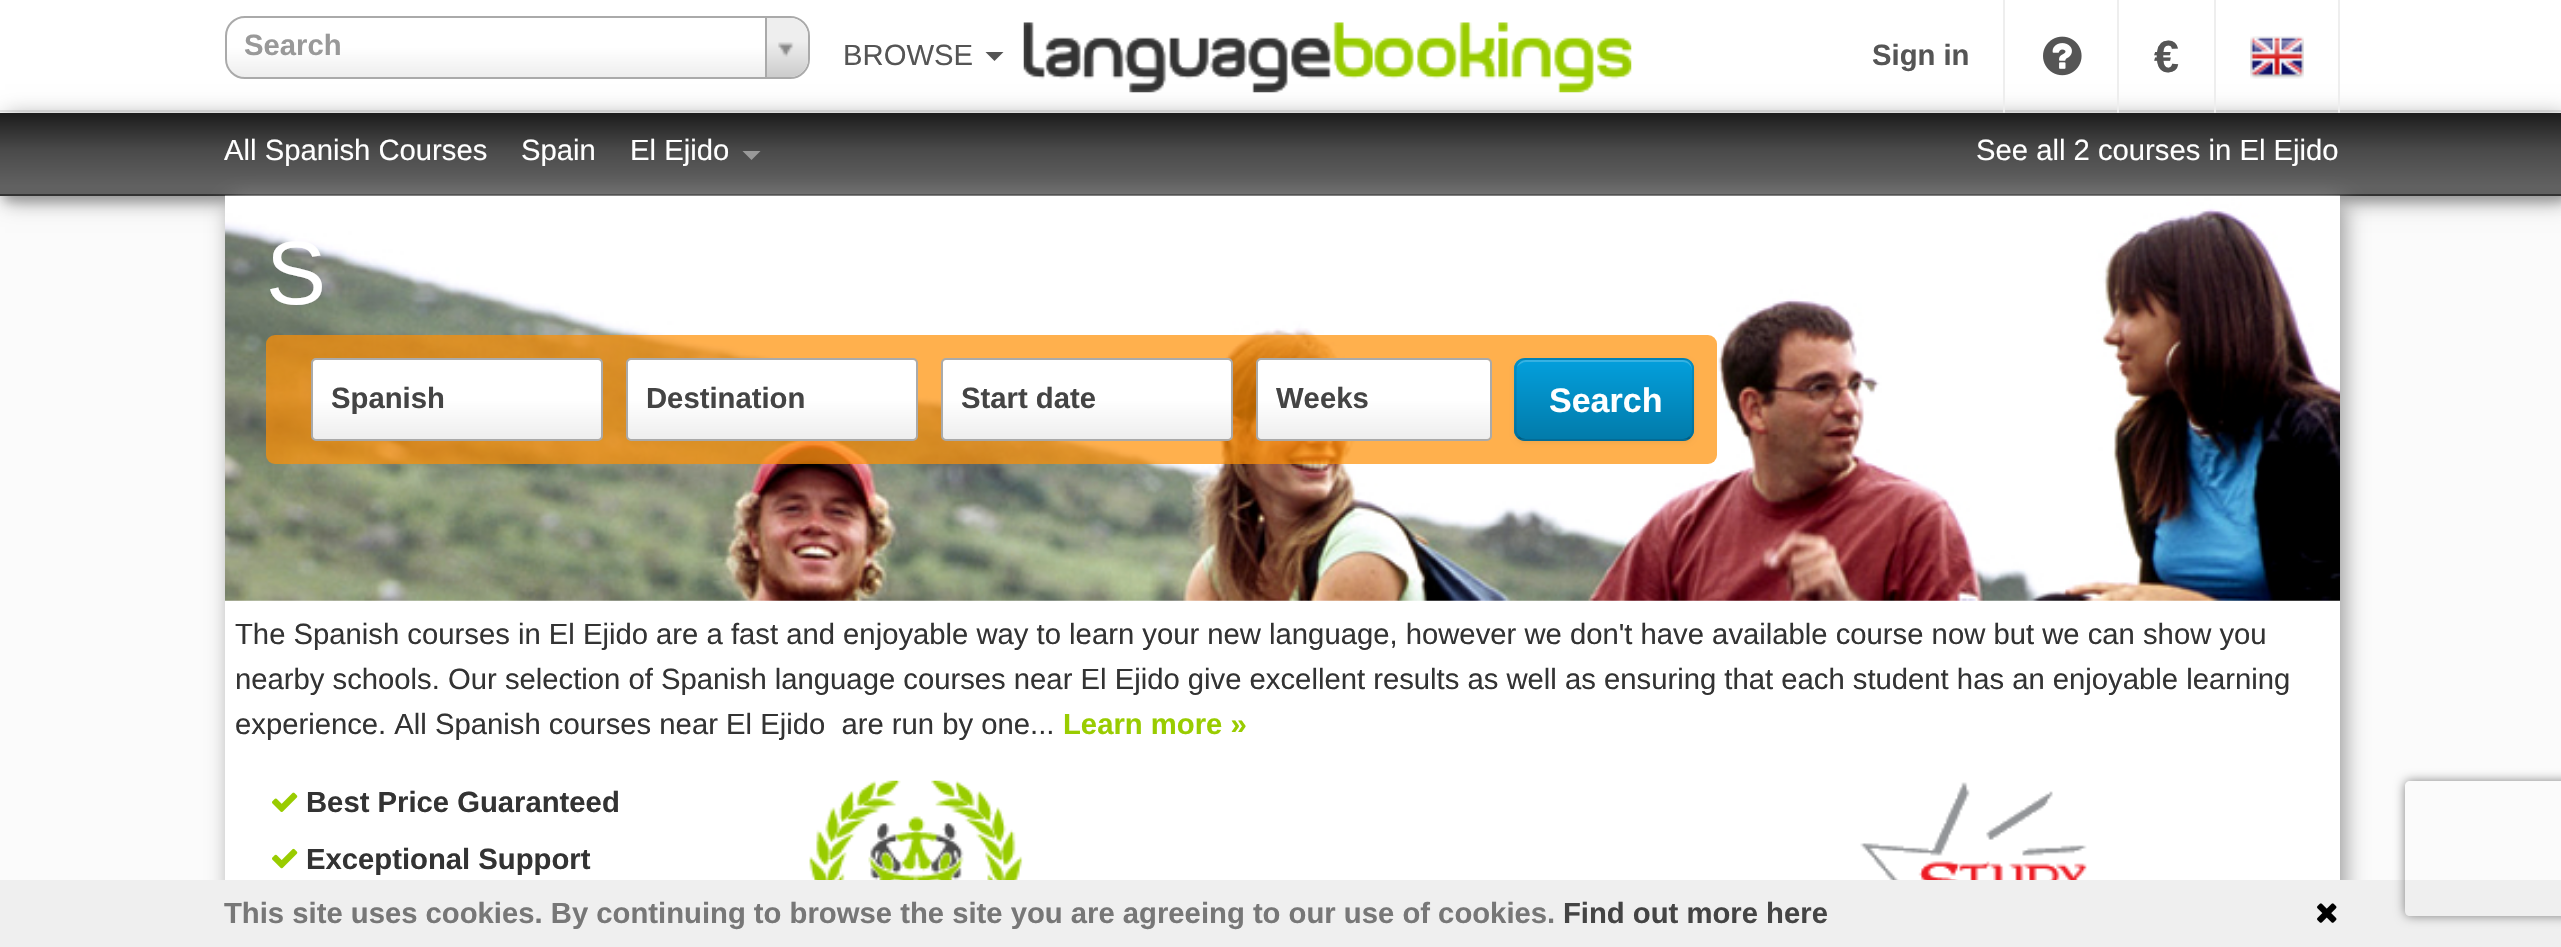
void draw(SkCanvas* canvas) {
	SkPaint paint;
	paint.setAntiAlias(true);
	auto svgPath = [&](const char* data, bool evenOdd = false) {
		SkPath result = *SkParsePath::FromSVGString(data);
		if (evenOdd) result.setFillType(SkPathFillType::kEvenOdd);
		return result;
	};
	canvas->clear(0xfffbfbfb);
	paint.setColor(0xff999999);
	paint.setMaskFilter(SkMaskFilter::MakeBlur(kNormal_SkBlurStyle, 5.5));
	canvas->drawRect(SkRect::MakeXYWH(5, 5, 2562, 195), paint);
	paint.setMaskFilter(nullptr);
	paint.setColor(0xffffffff);
	canvas->drawRect(SkRect::MakeXYWH(0, 0, 2561, 113), paint);
	paint.setColor(0xffe6e6e6);
	canvas->drawRect(SkRect::MakeXYWH(0, 110, 2561, 2), paint);
	paint.setColor(0xff999999);
	paint.setMaskFilter(SkMaskFilter::MakeBlur(kNormal_SkBlurStyle, 11));
	canvas->drawRect(SkRect::MakeXYWH(5, 117, 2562, 83), paint);
	paint.setMaskFilter(nullptr);
	canvas->drawImageRect(SkImages::DeferredFromEncodedData(SkData::MakeFromFileName("img1.png")), SkRect::MakeXYWH(1023, 22, 609, 71), SkSamplingOptions());
	{
		const SkColor colors[] = {0xffeeeeee, 0xffffffff};
		const float stops[] = {0, 0.5};
		const SkPoint ends[] = {{227, 77}, {227, 18}};
		paint.setShader(SkGradientShader::MakeLinear(ends, colors, stops, 2, SkTileMode::kClamp));
		paint.setAlpha(255);
	}
	canvas->drawRoundRect(SkRect::MakeXYWH(227, 18, 581, 59), 18, 18, paint);
	paint.setStroke(true);
	paint.setStrokeWidth(2);
	paint.setShader(nullptr);
	paint.setColor(0xffaaaaaa);
	canvas->drawRoundRect(SkRect::MakeXYWH(226, 17, 583, 61), 19, 19, paint);
	SkFont f1(fontMgr->matchFamilyStyle("Liberation Sans", SkFontStyle::Bold()), 29.25);
	f1.setSubpixel(true);
	paint.setStroke(false);
	paint.setColor(0xff999999);
	canvas->drawString("Search", 244, 55, f1, paint);
	{
		const SkColor colors[] = {0xffcccccc, 0xffeeeeee};
		const float stops[] = {0, 0.6};
		const SkPoint ends[] = {{767, 77}, {767, 18}};
		paint.setShader(SkGradientShader::MakeLinear(ends, colors, stops, 2, SkTileMode::kClamp));
		paint.setAlpha(255);
	}
	canvas->drawPath(svgPath("M765 18H790C800 18 808 26 808 36V59C808 69 800 77 790 77H765Z"), paint);
	paint.setShader(nullptr);
	paint.setColor(0xffaaaaaa);
	canvas->drawRect(SkRect::MakeXYWH(765, 18, 2, 59), paint);
	canvas->drawImageRect(SkImages::DeferredFromEncodedData(SkData::MakeFromFileName("img2.png")), SkRect::MakeXYWH(778, 42, 16, 15), SkSamplingOptions());
	SkFont f2(fontMgr->matchFamilyStyle("Liberation Sans", SkFontStyle::Normal()), 29.25);
	f2.setSubpixel(true);
	paint.setColor(0xff555555);
	canvas->drawString("BROWSE", 843, 65, f2, paint);
	canvas->drawPath(svgPath("M985.5 52H1003.5L994.5 61Z"), paint);
	paint.setColor(0xffeeeeee);
	canvas->drawRect(SkRect::MakeXYWH(2003, 0, 2, 113), paint);
	paint.setColor(0xff555555);
	canvas->drawString("Sign in", 1872, 65, f1, paint);
	paint.setColor(0xffeeeeee);
	canvas->drawRect(SkRect::MakeXYWH(2117, 0, 2, 113), paint);
	canvas->drawImageRect(SkImages::DeferredFromEncodedData(SkData::MakeFromFileName("img3.png")), SkRect::MakeXYWH(2043, 36, 39, 40), SkSamplingOptions());
	canvas->drawRect(SkRect::MakeXYWH(2214, 0, 2, 113), paint);
	SkFont f3(fontMgr->matchFamilyStyle("Liberation Sans", SkFontStyle::Bold()), 45);
	f3.setSubpixel(true);
	paint.setColor(0xff555555);
	canvas->drawString("€", 2154, 72, f3, paint);
	paint.setColor(0xffeeeeee);
	canvas->drawRect(SkRect::MakeXYWH(2338, 0, 2, 113), paint);
	canvas->drawImageRect(SkImages::DeferredFromEncodedData(SkData::MakeFromFileName("img4.png")), SkRect::MakeXYWH(2250, 36, 54, 43), SkSamplingOptions());
	{
		const SkColor colors[] = {0xff616161, 0xff4a4a4a, 0xff1c1c1c};
		const float stops[] = {0.1, 0.54, 1};
		const SkPoint ends[] = {{1281, 194}, {1281, 113}};
		paint.setShader(SkGradientShader::MakeLinear(ends, colors, stops, 3, SkTileMode::kClamp));
		paint.setAlpha(255);
	}
	canvas->drawRect(SkRect::MakeXYWH(0, 113, 2561, 81), paint);
	paint.setShader(nullptr);
	paint.setColor(0xff333333);
	canvas->drawRect(SkRect::MakeXYWH(0, 194, 2561, 2), paint);
	paint.setColor(0xff999999);
	paint.setMaskFilter(SkMaskFilter::MakeBlur(kNormal_SkBlurStyle, 11));
	canvas->drawRoundRect(SkRect::MakeXYWH(230, 200, 2115, 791), 11, 11, paint);
	paint.setMaskFilter(nullptr);
	paint.setColor(0xffffffff);
	canvas->drawString("All Spanish Courses", 224, 160, f2, paint);
	canvas->drawString("Spain", 521, 160, f2, paint);
	canvas->drawString("El Ejido", 630, 160, f2, paint);
	paint.setColor(0xff999999);
	canvas->drawPath(svgPath("M742.5 151H760.5L751.5 160Z"), paint);
	paint.setColor(0xffffffff);
	canvas->drawString("See all 2 courses in El Ejido", 1976, 160, f2, paint);
	canvas->drawRect(SkRect::MakeXYWH(225, 600, 2115, 280), paint);
	canvas->drawImageRect(SkImages::DeferredFromEncodedData(SkData::MakeFromFileName("img5.png")), SkRect::MakeXYWH(225, 195, 2115, 406), SkSamplingOptions());
	SkFont f4(fontMgr->matchFamilyStyle("Liberation Sans", SkFontStyle::Normal()), 90);
	f4.setSubpixel(true);
	canvas->drawString("S", 266, 304, f4, paint);
	paint.setColor(0xb3ff8e01);
	canvas->drawRoundRect(SkRect::MakeXYWH(266, 335, 1451, 129), 9, 9, paint);
	{
		const SkColor colors[] = {0xffeeeeee, 0xffffffff};
		const float stops[] = {0, 0.5};
		const SkPoint ends[] = {{313, 439}, {313, 360}};
		paint.setShader(SkGradientShader::MakeLinear(ends, colors, stops, 2, SkTileMode::kClamp));
		paint.setAlpha(255);
	}
	canvas->drawRoundRect(SkRect::MakeXYWH(313, 360, 288, 79), 2, 2, paint);
	paint.setStroke(true);
	paint.setShader(nullptr);
	paint.setColor(0xffaaaaaa);
	canvas->drawRoundRect(SkRect::MakeXYWH(312, 359, 290, 81), 4, 4, paint);
	paint.setStroke(false);
	paint.setColor(0xff444444);
	canvas->drawString("Spanish", 331, 408, f1, paint);
	{
		const SkColor colors[] = {0xffeeeeee, 0xffffffff};
		const float stops[] = {0, 0.5};
		const SkPoint ends[] = {{628, 439}, {628, 360}};
		paint.setShader(SkGradientShader::MakeLinear(ends, colors, stops, 2, SkTileMode::kClamp));
		paint.setAlpha(255);
	}
	canvas->drawRoundRect(SkRect::MakeXYWH(628, 360, 288, 79), 2, 2, paint);
	paint.setStroke(true);
	paint.setShader(nullptr);
	paint.setColor(0xffaaaaaa);
	canvas->drawRoundRect(SkRect::MakeXYWH(627, 359, 290, 81), 4, 4, paint);
	paint.setStroke(false);
	paint.setColor(0xff444444);
	canvas->drawString("Destination", 646, 408, f1, paint);
	{
		const SkColor colors[] = {0xffeeeeee, 0xffffffff};
		const float stops[] = {0, 0.5};
		const SkPoint ends[] = {{943, 439}, {943, 360}};
		paint.setShader(SkGradientShader::MakeLinear(ends, colors, stops, 2, SkTileMode::kClamp));
		paint.setAlpha(255);
	}
	canvas->drawRoundRect(SkRect::MakeXYWH(943, 360, 288, 79), 2, 2, paint);
	paint.setStroke(true);
	paint.setShader(nullptr);
	paint.setColor(0xffaaaaaa);
	canvas->drawRoundRect(SkRect::MakeXYWH(942, 359, 290, 81), 4, 4, paint);
	paint.setStroke(false);
	paint.setColor(0xff444444);
	canvas->drawString("Start date", 961, 408, f1, paint);
	{
		const SkColor colors[] = {0xffeeeeee, 0xffffffff};
		const float stops[] = {0, 0.5};
		const SkPoint ends[] = {{1258, 439}, {1258, 360}};
		paint.setShader(SkGradientShader::MakeLinear(ends, colors, stops, 2, SkTileMode::kClamp));
		paint.setAlpha(255);
	}
	canvas->drawRoundRect(SkRect::MakeXYWH(1258, 360, 232, 79), 2, 2, paint);
	paint.setStroke(true);
	paint.setShader(nullptr);
	paint.setColor(0xffaaaaaa);
	canvas->drawRoundRect(SkRect::MakeXYWH(1257, 359, 234, 81), 4, 4, paint);
	paint.setStroke(false);
	paint.setColor(0xff444444);
	canvas->drawString("Weeks", 1276, 408, f1, paint);
	paint.setColor(0x0d000000);
	paint.setMaskFilter(SkMaskFilter::MakeBlur(kNormal_SkBlurStyle, 2));
	canvas->drawRoundRect(SkRect::MakeXYWH(1514, 360, 180, 83), 11, 11, paint);
	paint.setMaskFilter(nullptr);
	paint.setColor(0xff0390c8);
	canvas->drawRoundRect(SkRect::MakeXYWH(1514, 358, 180, 83), 11, 11, paint);
	canvas->save();
	canvas->clipPath(svgPath("M1525 358H1683C1689 358 1694 363 1694 369V430C1694 436 1689 441 1683 441H1525C1519 441 1514 436 1514 430V369C1514 363 1519 358 1525 358Z"), true);
	{
		const SkColor colors[] = {0xff039fdc, 0xff027baa};
		const float stops[] = {0, 1};
		const SkPoint ends[] = {{1604, 360}, {1604, 439}};
		paint.setShader(SkGradientShader::MakeLinear(ends, colors, stops, 2, SkTileMode::kClamp));
		paint.setAlpha(255);
	}
	canvas->drawRect(SkRect::MakeXYWH(1514, 360, 180, 79), paint);
	canvas->restore();
	paint.setShader(nullptr);
	paint.setColor(0x33ffffff);
	canvas->drawPath(svgPath("M1526 362H1683C1688 362 1692 366 1692 371V369C1692 364 1688 360 1683 360H1526C1522 360 1518 363 1517 367C1519 364 1523 362 1526 362Z"), paint);
	paint.setStroke(true);
	paint.setStrokeWidth(2.2);
	paint.setColor(0x40000000);
	canvas->drawPath(svgPath("M1690 437C1688.5 439 1685.5 440 1683 440H1525.5C1523 440 1520 439 1518.5 437"), paint);
	paint.setColor(0x1a000000);
	canvas->drawPath(svgPath("M1518.5 437C1516.5 435 1515.5 432.5 1515.5 430V369C1515.5 366.5 1516.5 363.5 1518.5 362C1520 360 1523 359 1525.5 359H1683C1685.5 359 1688.5 360 1690 362C1692 363.5 1693 366.5 1693 369V430C1693 432.5 1692 435 1690 437"), paint);
	SkFont f5(fontMgr->matchFamilyStyle("Liberation Sans", SkFontStyle::Bold()), 34);
	f5.setSubpixel(true);
	paint.setStroke(false);
	paint.setColor(0xffffffff);
	canvas->drawString("Search", 1549, 412, f5, paint);
	paint.setColor(0xff333333);
	canvas->drawString("The Spanish courses in El Ejido are a fast and enjoyable way to learn your new language, however we don't have available course now but we can show you", 235, 644, f2, paint);
	canvas->drawString("nearby schools. Our selection of Spanish language courses near El Ejido give excellent results as well as ensuring that each student has an enjoyable learning", 235, 689, f2, paint);
	canvas->drawString("experience. All Spanish courses near El Ejido  are run by one...", 235, 734, f2, paint);
	paint.setColor(0xff99cc00);
	canvas->drawString("Learn more »", 1063, 734, f1, paint);
	canvas->drawImageRect(SkImages::DeferredFromEncodedData(SkData::MakeFromFileName("img6.png")), SkRect::MakeXYWH(272, 792, 26, 20), SkSamplingOptions());
	paint.setColor(0xff333333);
	canvas->drawString("Best Price Guaranteed", 306, 812, f1, paint);
	canvas->drawImageRect(SkImages::DeferredFromEncodedData(SkData::MakeFromFileName("img7.png")), SkRect::MakeXYWH(272, 848, 26, 21), SkSamplingOptions());
	canvas->drawString("Exceptional Support", 306, 869, f1, paint);
	canvas->drawImageRect(SkImages::DeferredFromEncodedData(SkData::MakeFromFileName("img8.png")), SkRect::MakeXYWH(809, 780, 214, 100), SkSamplingOptions());
	canvas->drawImageRect(SkImages::DeferredFromEncodedData(SkData::MakeFromFileName("img9.png")), SkRect::MakeXYWH(1822, 782, 265, 98), SkSamplingOptions());
	paint.setColor(0xffefefef);
	canvas->drawRect(SkRect::MakeXYWH(0, 880, 2561, 67), paint);
	canvas->save();
	canvas->clipPath(svgPath("M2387 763H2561V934H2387ZM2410 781H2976C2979 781 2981 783 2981 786V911C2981 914 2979 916 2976 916H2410C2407 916 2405 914 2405 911V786C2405 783 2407 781 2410 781Z", true), true);
	paint.setColor(0xff808080);
	paint.setMaskFilter(SkMaskFilter::MakeBlur(kNormal_SkBlurStyle, 5.5));
	canvas->drawRoundRect(SkRect::MakeXYWH(2405, 781, 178, 135), 5, 5, paint);
	paint.setMaskFilter(nullptr);
	canvas->restore();
	paint.setColor(0xff777777);
	canvas->drawString("This site uses cookies. By continuing to browse the site you are agreeing to our use of cookies.", 224, 923, f1, paint);
	paint.setColor(0xff444444);
	canvas->drawString("Find out more here", 1563, 923, f1, paint);
	canvas->drawImageRect(SkImages::DeferredFromEncodedData(SkData::MakeFromFileName("img10.png")), SkRect::MakeXYWH(2317, 903, 20, 20), SkSamplingOptions());
}
